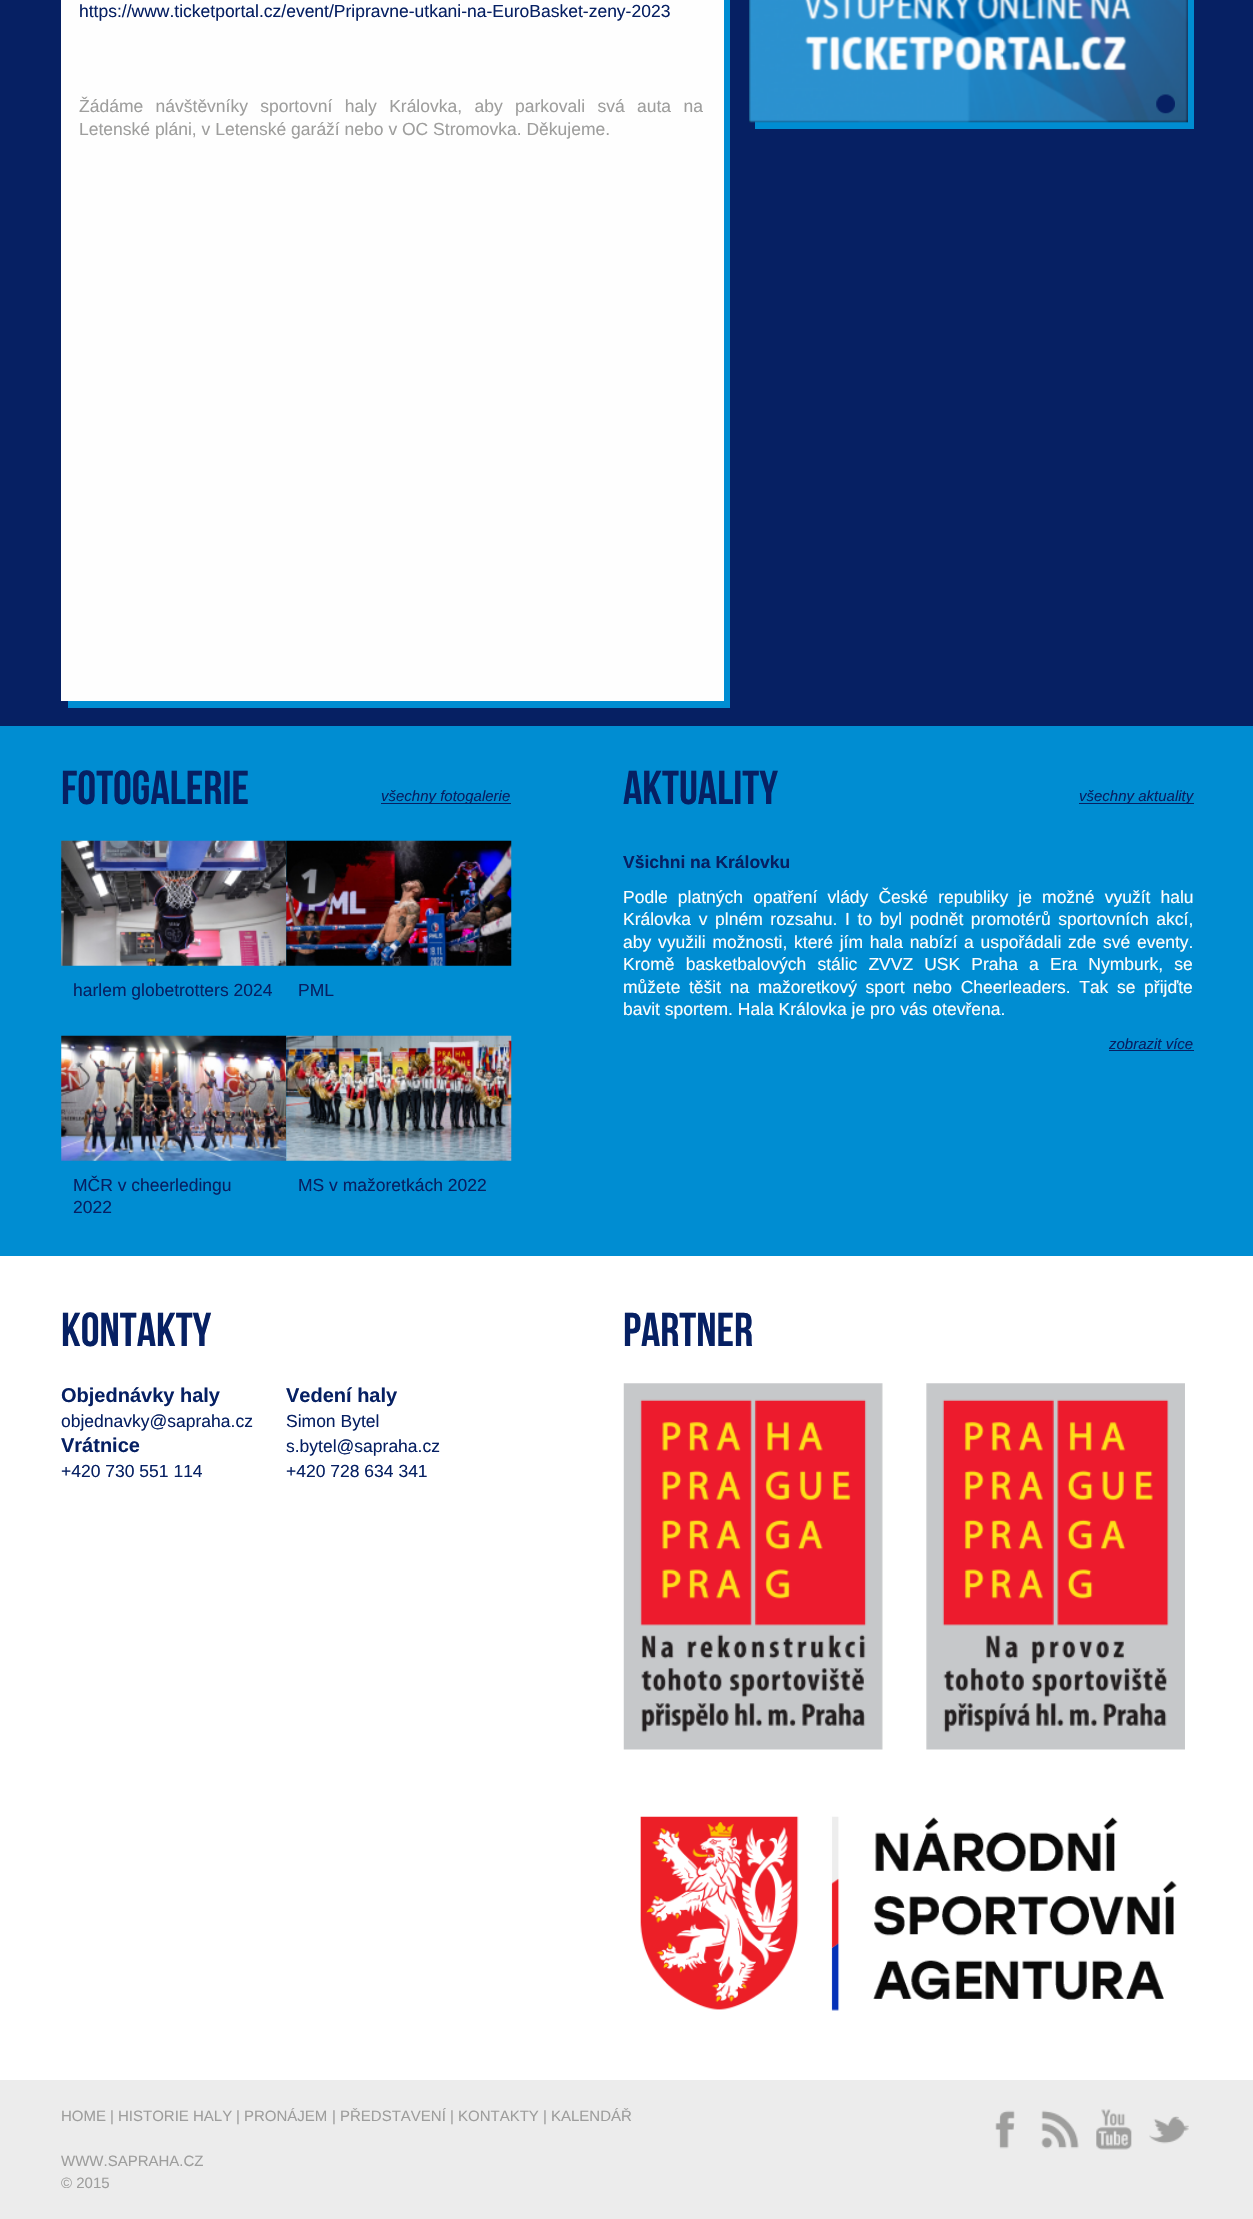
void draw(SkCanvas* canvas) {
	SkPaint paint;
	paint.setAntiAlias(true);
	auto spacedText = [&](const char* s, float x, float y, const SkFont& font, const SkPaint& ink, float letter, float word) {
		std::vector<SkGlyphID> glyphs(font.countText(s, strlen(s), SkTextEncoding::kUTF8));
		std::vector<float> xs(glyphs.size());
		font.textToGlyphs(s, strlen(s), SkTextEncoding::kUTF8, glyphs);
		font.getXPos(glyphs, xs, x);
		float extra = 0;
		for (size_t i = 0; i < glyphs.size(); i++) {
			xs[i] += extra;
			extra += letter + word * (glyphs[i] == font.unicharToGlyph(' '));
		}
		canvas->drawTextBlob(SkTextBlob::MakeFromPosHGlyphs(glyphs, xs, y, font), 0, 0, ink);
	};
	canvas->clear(0xffffffff);
	paint.setColor(0xff062063);
	canvas->drawRect(SkRect::MakeXYWH(0, 0, 1253, 726), paint);
	paint.setColor(0xff008dd2);
	canvas->drawRect(SkRect::MakeXYWH(68, 0, 662, 708), paint);
	paint.setColor(0xfffefefe);
	canvas->drawRect(SkRect::MakeXYWH(61, 0, 663, 701), paint);
	SkFont f1(fontMgr->matchFamilyStyle("Liberation Sans", SkFontStyle::Normal()), 17.5);
	f1.setSubpixel(true);
	paint.setColor(0xff062063);
	canvas->drawString("https://www.ticketportal.cz/event/Pripravne-utkani-na-EuroBasket-zeny-2023", 79, 17, f1, paint);
	paint.setColor(0xff9e9e9d);
	spacedText("Žádáme návštěvníky sportovní haly Královka, aby parkovali svá auta na", 79, 112, f1, paint, 0, 7.5);
	canvas->drawString("Letenské pláni, v Letenské garáží nebo v OC Stromovka. Děkujeme.", 79, 135, f1, paint);
	paint.setColor(0xff008dd2);
	canvas->drawRect(SkRect::MakeXYWH(755, 0, 439, 129), paint);
	canvas->drawImageRect(SkImages::DeferredFromEncodedData(SkData::MakeFromFileName("img1.png")), SkRect::MakeXYWH(749, 0, 439, 123), SkSamplingOptions());
	canvas->drawImageRect(SkImages::DeferredFromEncodedData(SkData::MakeFromFileName("img2.png")), SkRect::MakeXYWH(1156, 94, 19, 20), SkSamplingOptions());
	canvas->drawRect(SkRect::MakeXYWH(0, 726, 1253, 530), paint);
	SkFont f2(fontMgr->matchFamilyStyle("Bebas Neue", SkFontStyle::Normal()), 47.5);
	f2.setSubpixel(true);
	paint.setColor(0xff062063);
	canvas->drawString("Fotogalerie", 61, 804, f2, paint);
	canvas->drawRect(SkRect::MakeXYWH(381, 803, 130, 1), paint);
	SkFont f3(fontMgr->matchFamilyStyle("Liberation Sans", SkFontStyle::Italic()), 15);
	f3.setSubpixel(true);
	canvas->drawString("všechny fotogalerie", 381, 801, f3, paint);
	canvas->drawImageRect(SkImages::DeferredFromEncodedData(SkData::MakeFromFileName("img3.png")), SkRect::MakeXYWH(61, 840, 226, 126), SkSamplingOptions());
	canvas->drawString("harlem globetrotters 2024", 73, 996, f1, paint);
	canvas->drawImageRect(SkImages::DeferredFromEncodedData(SkData::MakeFromFileName("img4.png")), SkRect::MakeXYWH(286, 840, 226, 126), SkSamplingOptions());
	canvas->drawString("PML", 298, 996, f1, paint);
	canvas->drawImageRect(SkImages::DeferredFromEncodedData(SkData::MakeFromFileName("img5.png")), SkRect::MakeXYWH(61, 1035, 226, 126), SkSamplingOptions());
	canvas->drawString("MČR v cheerledingu", 73, 1191, f1, paint);
	canvas->drawString("2022", 73, 1213, f1, paint);
	canvas->drawImageRect(SkImages::DeferredFromEncodedData(SkData::MakeFromFileName("img6.png")), SkRect::MakeXYWH(286, 1035, 226, 126), SkSamplingOptions());
	canvas->drawString("MS v mažoretkách 2022", 298, 1191, f1, paint);
	canvas->drawString("Aktuality", 623, 804, f2, paint);
	canvas->drawRect(SkRect::MakeXYWH(1079, 803, 115, 1), paint);
	canvas->drawString("všechny aktuality", 1079, 801, f3, paint);
	SkFont f4(fontMgr->matchFamilyStyle("Liberation Sans", SkFontStyle::Bold()), 17.5);
	f4.setSubpixel(true);
	canvas->drawString("Všichni na Královku", 623, 868, f4, paint);
	paint.setColor(0xfffefefe);
	spacedText("Podle platných opatření vlády České republiky je možné využít halu", 623, 903, f1, paint, 0, 5.25);
	spacedText("Královka v plném rozsahu. I to byl podnět promotérů sportovních akcí,", 623, 925, f1, paint, 0, 2.75);
	spacedText("aby využili možnosti, které jím hala nabízí a uspořádali zde své eventy.", 623, 948, f1, paint, 0, 1.9);
	spacedText("Kromě basketbalových stálic ZVVZ USK Praha a Era Nymburk, se", 623, 970, f1, paint, 0, 6.25);
	spacedText("můžete těšit na mažoretkový sport nebo Cheerleaders. Tak se přijďte", 623, 993, f1, paint, 0, 3.75);
	canvas->drawString("bavit sportem. Hala Královka je pro vás otevřena.", 623, 1015, f1, paint);
	paint.setColor(0xff062063);
	canvas->drawString("zobrazit více", 1109, 1049, f3, paint);
	canvas->drawRect(SkRect::MakeXYWH(1109, 1050, 85, 1), paint);
	canvas->drawString("Kontakty", 61, 1346, f2, paint);
	SkFont f5(fontMgr->matchFamilyStyle("Liberation Sans", SkFontStyle::Bold()), 20);
	f5.setSubpixel(true);
	canvas->drawString("Objednávky haly", 61, 1402, f5, paint);
	canvas->drawString("objednavky@sapraha.cz", 61, 1427, f1, paint);
	canvas->drawString("Vrátnice", 61, 1452, f5, paint);
	canvas->drawString("+420 730 551 114", 61, 1477, f1, paint);
	canvas->drawString("Vedení haly", 286, 1402, f5, paint);
	canvas->drawString("Simon Bytel", 286, 1427, f1, paint);
	canvas->drawString("s.bytel@sapraha.cz", 286, 1452, f1, paint);
	canvas->drawString("+420 728 634 341", 286, 1477, f1, paint);
	canvas->drawString("partner", 623, 1346, f2, paint);
	canvas->drawImageRect(SkImages::DeferredFromEncodedData(SkData::MakeFromFileName("img7.png")), SkRect::MakeXYWH(623, 1383, 562, 367), SkSamplingOptions());
	canvas->drawImageRect(SkImages::DeferredFromEncodedData(SkData::MakeFromFileName("img8.png")), SkRect::MakeXYWH(640, 1816, 537, 195), SkSamplingOptions());
	paint.setColor(0xffececec);
	canvas->drawRect(SkRect::MakeXYWH(0, 2080, 1253, 139), paint);
	SkFont f6(fontMgr->matchFamilyStyle("Liberation Sans", SkFontStyle::Normal()), 15);
	f6.setSubpixel(true);
	paint.setColor(0xff9e9e9d);
	canvas->drawString("HOME", 61, 2121, f6, paint);
	canvas->drawString("|", 110, 2121, f6, paint);
	canvas->drawString("HISTORIE HALY", 118, 2121, f6, paint);
	canvas->drawString("|", 236, 2121, f6, paint);
	canvas->drawString("PRONÁJEM", 244, 2121, f6, paint);
	canvas->drawString("|", 332, 2121, f6, paint);
	canvas->drawString("PŘEDSTAVENÍ", 340, 2121, f6, paint);
	canvas->drawString("|", 450, 2121, f6, paint);
	canvas->drawString("KONTAKTY", 458, 2121, f6, paint);
	canvas->drawString("|", 543, 2121, f6, paint);
	canvas->drawString("KALENDÁŘ", 551, 2121, f6, paint);
	canvas->drawString("WWW.SAPRAHA.CZ", 61, 2166, f6, paint);
	canvas->drawString("© 2015", 61, 2188, f6, paint);
	canvas->drawImageRect(SkImages::DeferredFromEncodedData(SkData::MakeFromFileName("img9.png")), SkRect::MakeXYWH(995, 2110, 20, 39), SkSamplingOptions());
	canvas->drawImageRect(SkImages::DeferredFromEncodedData(SkData::MakeFromFileName("img10.png")), SkRect::MakeXYWH(1041, 2110, 38, 39), SkSamplingOptions());
	canvas->drawImageRect(SkImages::DeferredFromEncodedData(SkData::MakeFromFileName("img11.png")), SkRect::MakeXYWH(1096, 2109, 36, 41), SkSamplingOptions());
	canvas->drawImageRect(SkImages::DeferredFromEncodedData(SkData::MakeFromFileName("img12.png")), SkRect::MakeXYWH(1149, 2116, 40, 28), SkSamplingOptions());
}
